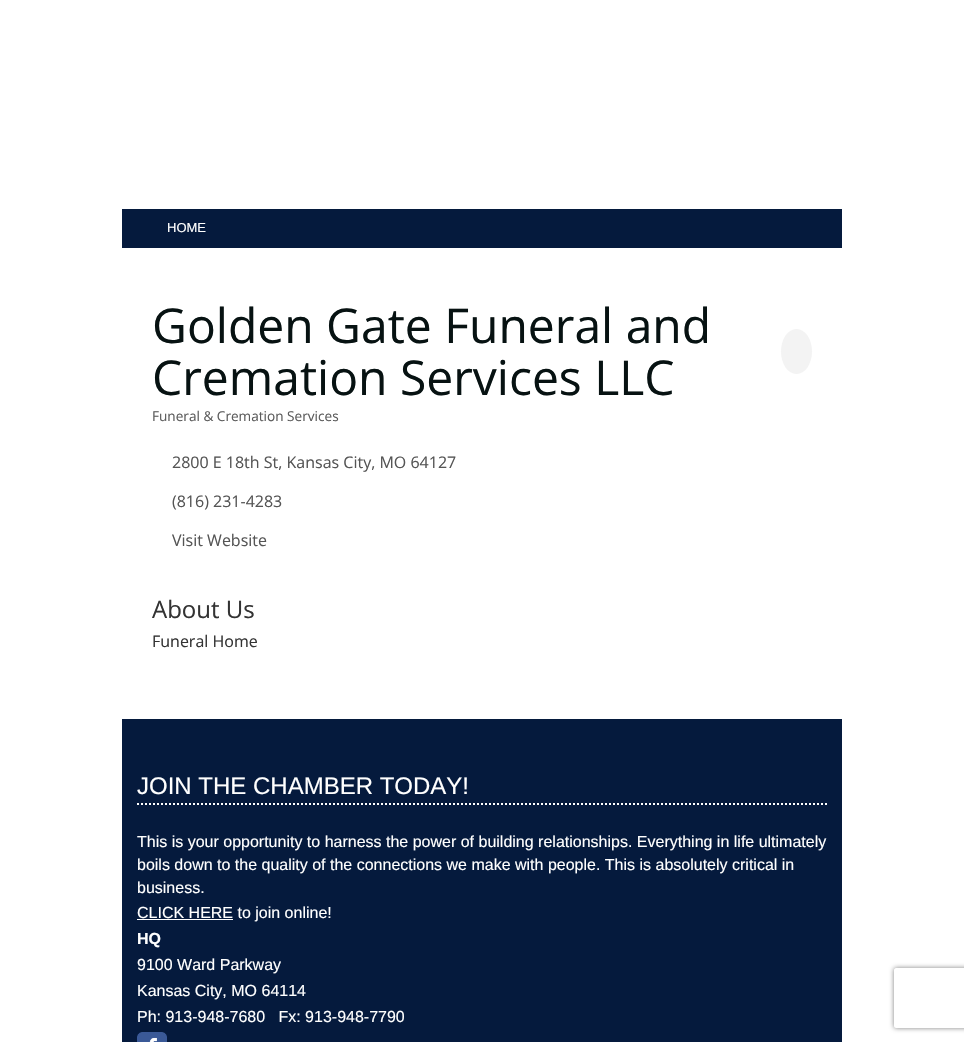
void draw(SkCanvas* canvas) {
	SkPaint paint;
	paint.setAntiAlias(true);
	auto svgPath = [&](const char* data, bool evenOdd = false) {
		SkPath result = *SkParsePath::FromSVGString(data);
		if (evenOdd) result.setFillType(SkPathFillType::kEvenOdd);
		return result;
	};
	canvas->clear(0xffffffff);
	paint.setColor(0xff051a3d);
	canvas->drawRect(SkRect::MakeXYWH(122, 209, 720, 39), paint);
	SkFont f1(fontMgr->matchFamilyStyle("Liberation Sans", SkFontStyle::Normal()), 13);
	f1.setSubpixel(true);
	paint.setColor(0xffffffff);
	canvas->drawString("HOME", 167, 232, f1, paint);
	SkFont f2(fontMgr->matchFamilyStyle("Open Sans", SkFontStyle::Normal()), 48);
	f2.setSubpixel(true);
	paint.setColor(0xff071212);
	canvas->drawString("Golden Gate Funeral and", 152, 343, f2, paint);
	canvas->drawString("Cremation Services LLC", 152, 395, f2, paint);
	paint.setColor(0xfff3f3f3);
	canvas->drawOval(SkRect::MakeXYWH(781, 329, 31, 45), paint);
	SkFont f3(fontMgr->matchFamilyStyle("Open Sans", SkFontStyle::Normal()), 13.6);
	f3.setSubpixel(true);
	paint.setColor(0xff5c5c5c);
	canvas->drawString("Funeral & Cremation Services", 152, 421, f3, paint);
	SkFont f4(fontMgr->matchFamilyStyle("Open Sans", SkFontStyle::Normal()), 16);
	f4.setSubpixel(true);
	paint.setColor(0xff555555);
	canvas->drawString("2800 E 18th St, Kansas City, MO 64127", 172, 468, f4, paint);
	canvas->drawString("(816) 231-4283", 172, 507, f4, paint);
	canvas->drawString("Visit Website", 172, 546, f4, paint);
	SkFont f5(fontMgr->matchFamilyStyle("Open Sans", SkFontStyle::Normal()), 24);
	f5.setSubpixel(true);
	paint.setColor(0xff333333);
	canvas->drawString("About Us", 152, 618, f5, paint);
	canvas->drawString("Funeral Home", 152, 647, f4, paint);
	paint.setColor(0xff051a3d);
	canvas->drawRect(SkRect::MakeXYWH(122, 719, 720, 323), paint);
	paint.setStroke(true);
	paint.setStrokeWidth(2);
	paint.setColor(0xffffffff);
	paint.setPathEffect(SkDashPathEffect::Make({{2, 2}}, 0));
	canvas->drawPath(svgPath("M137 804H827"), paint);
	paint.setPathEffect(nullptr);
	SkFont f6(fontMgr->matchFamilyStyle("Liberation Sans", SkFontStyle::Normal()), 24);
	f6.setSubpixel(true);
	paint.setStroke(false);
	canvas->drawString("JOIN THE CHAMBER TODAY!", 137, 794, f6, paint);
	SkFont f7(fontMgr->matchFamilyStyle("Liberation Sans", SkFontStyle::Normal()), 16);
	f7.setSubpixel(true);
	canvas->drawString("This is your opportunity to harness the power of building relationships. Everything in life ultimately", 137, 847, f7, paint);
	canvas->drawString("boils down to the quality of the connections we make with people. This is absolutely critical in", 137, 870, f7, paint);
	canvas->drawString("business.", 137, 893, f7, paint);
	canvas->drawRect(SkRect::MakeXYWH(137, 919, 96, 1), paint);
	canvas->drawString("CLICK HERE to join online!", 137, 918, f7, paint);
	SkFont f8(fontMgr->matchFamilyStyle("Liberation Sans", SkFontStyle::Bold()), 16);
	f8.setSubpixel(true);
	canvas->drawString("HQ", 137, 944, f8, paint);
	canvas->drawString("9100 Ward Parkway", 137, 970, f7, paint);
	canvas->drawString("Kansas City, MO 64114", 137, 996, f7, paint);
	canvas->drawString("Ph: 913-948-7680   Fx: 913-948-7790", 137, 1022, f7, paint);
	canvas->drawImageRect(SkImages::DeferredFromEncodedData(SkData::MakeFromFileName("img1.png")), SkRect::MakeXYWH(137, 1032, 30, 10), SkSamplingOptions());
	canvas->save();
	canvas->clipPath(svgPath("M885 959H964V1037H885ZM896 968H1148C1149 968 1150 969 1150 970V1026C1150 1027 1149 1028 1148 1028H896C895 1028 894 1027 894 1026V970C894 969 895 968 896 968Z", true), true);
	paint.setColor(0xff808080);
	paint.setMaskFilter(SkMaskFilter::MakeBlur(kNormal_SkBlurStyle, 2.5));
	canvas->drawRoundRect(SkRect::MakeXYWH(894, 968, 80, 60), 2, 2, paint);
	paint.setMaskFilter(nullptr);
	canvas->restore();
}
